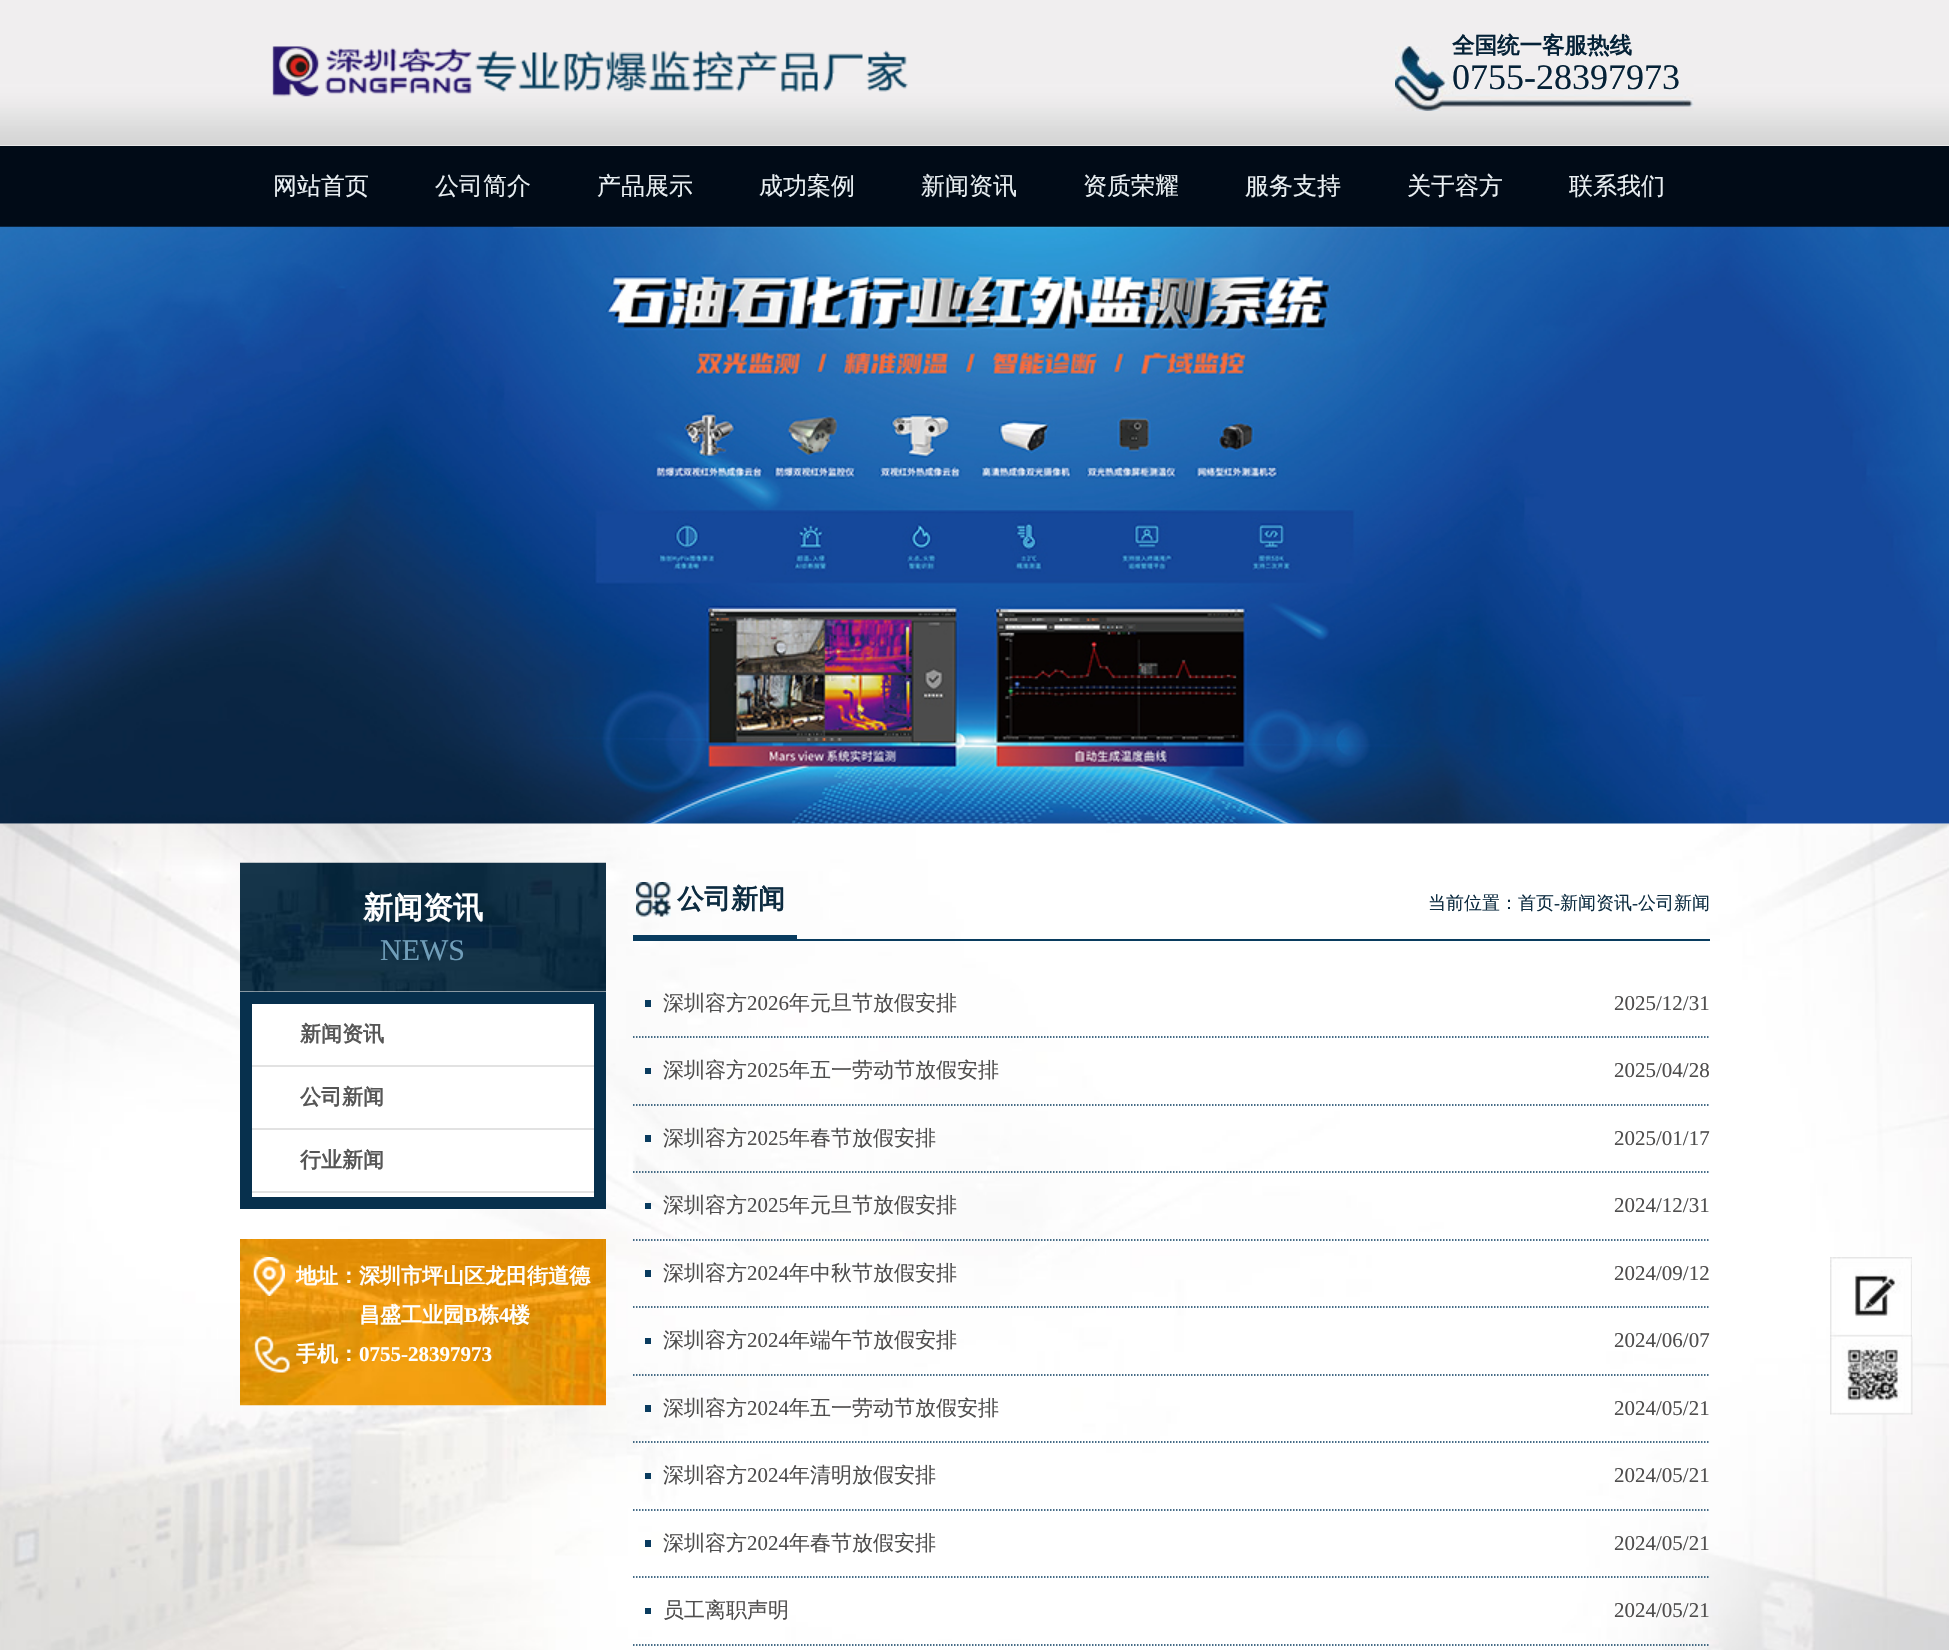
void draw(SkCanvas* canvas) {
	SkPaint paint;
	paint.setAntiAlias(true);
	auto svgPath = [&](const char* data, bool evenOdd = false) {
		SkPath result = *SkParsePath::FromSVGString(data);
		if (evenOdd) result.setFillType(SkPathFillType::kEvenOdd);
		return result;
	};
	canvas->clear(0xffffffff);
	canvas->drawImageRect(SkImages::DeferredFromEncodedData(SkData::MakeFromFileName("img1.png")), SkRect::MakeXYWH(0, 0, 1949, 146), SkSamplingOptions());
	canvas->drawImageRect(SkImages::DeferredFromEncodedData(SkData::MakeFromFileName("img2.png")), SkRect::MakeXYWH(272, 46, 636, 51), SkSamplingOptions());
	canvas->drawImageRect(SkImages::DeferredFromEncodedData(SkData::MakeFromFileName("img3.png")), SkRect::MakeXYWH(1395, 46, 299, 65), SkSamplingOptions());
	SkFont f1(fontMgr->matchFamilyStyle("WenQuanYi Zen Hei", SkFontStyle::Bold()), 22.5);
	f1.setSubpixel(true);
	paint.setColor(0xff052237);
	canvas->drawString("全国统一客服热线", 1452, 53, f1, paint);
	SkFont f2(fontMgr->matchFamilyStyle("Liberation Serif", SkFontStyle::Normal()), 36);
	f2.setSubpixel(true);
	canvas->drawString("0755-28397973", 1452, 89, f2, paint);
	paint.setColor(0xff010b17);
	canvas->drawRect(SkRect::MakeXYWH(0, 146, 1949, 81), paint);
	SkFont f3(fontMgr->matchFamilyStyle("WenQuanYi Zen Hei", SkFontStyle(500, SkFontStyle::kNormal_Width, SkFontStyle::kUpright_Slant)), 24);
	f3.setSubpixel(true);
	paint.setColor(0xffeaf0f3);
	canvas->drawString("网站首页", 273, 194, f3, paint);
	canvas->drawString("公司简介", 435, 194, f3, paint);
	canvas->drawString("产品展示", 597, 194, f3, paint);
	canvas->drawString("成功案例", 759, 194, f3, paint);
	canvas->drawString("新闻资讯", 921, 194, f3, paint);
	canvas->drawString("资质荣耀", 1083, 194, f3, paint);
	canvas->drawString("服务支持", 1245, 194, f3, paint);
	canvas->drawString("关于容方", 1407, 194, f3, paint);
	canvas->drawString("联系我们", 1569, 194, f3, paint);
	canvas->drawImageRect(SkImages::DeferredFromEncodedData(SkData::MakeFromFileName("img5.png")), SkRect::MakeXYWH(0, 823, 1949, 827), SkSamplingOptions());
	canvas->drawImageRect(SkImages::DeferredFromEncodedData(SkData::MakeFromFileName("img4.png")), SkRect::MakeXYWH(0, 226, 1949, 598), SkSamplingOptions());
	canvas->drawImageRect(SkImages::DeferredFromEncodedData(SkData::MakeFromFileName("img6.png")), SkRect::MakeXYWH(240, 862, 366, 130), SkSamplingOptions());
	SkFont f4(fontMgr->matchFamilyStyle("WenQuanYi Zen Hei", SkFontStyle::Bold()), 30);
	f4.setSubpixel(true);
	paint.setColor(0xffffffff);
	canvas->drawString("新闻资讯", 363, 918, f4, paint);
	SkFont f5(fontMgr->matchFamilyStyle("Liberation Serif", SkFontStyle::Normal()), 30);
	f5.setSubpixel(true);
	paint.setColor(0xff709eb9);
	canvas->drawString("NEWS", 380, 960, f5, paint);
	paint.setColor(0xffffffff);
	canvas->drawRect(SkRect::MakeXYWH(246, 998, 354, 205), paint);
	paint.setStroke(true);
	paint.setStrokeWidth(12);
	paint.setColor(0xff07304d);
	canvas->drawRect(SkRect::MakeXYWH(246, 998, 354, 205), paint);
	paint.setStroke(false);
	paint.setColor(0xffe2e2e2);
	canvas->drawRect(SkRect::MakeXYWH(252, 1065, 342, 2), paint);
	SkFont f6(fontMgr->matchFamilyStyle("WenQuanYi Zen Hei", SkFontStyle::Bold()), 21);
	f6.setSubpixel(true);
	paint.setColor(0xff565656);
	canvas->drawString("新闻资讯", 300, 1041, f6, paint);
	paint.setColor(0xffe2e2e2);
	canvas->drawRect(SkRect::MakeXYWH(252, 1128, 342, 2), paint);
	paint.setColor(0xff565656);
	canvas->drawString("公司新闻", 300, 1104, f6, paint);
	paint.setColor(0xffe2e2e2);
	canvas->drawRect(SkRect::MakeXYWH(252, 1191, 342, 2), paint);
	paint.setColor(0xff565656);
	canvas->drawString("行业新闻", 300, 1167, f6, paint);
	canvas->drawImageRect(SkImages::DeferredFromEncodedData(SkData::MakeFromFileName("img7.png")), SkRect::MakeXYWH(240, 1239, 366, 167), SkSamplingOptions());
	canvas->drawImageRect(SkImages::DeferredFromEncodedData(SkData::MakeFromFileName("img8.png")), SkRect::MakeXYWH(253, 1257, 32, 39), SkSamplingOptions());
	paint.setColor(0xffffffff);
	canvas->drawString("地址：深圳市坪山区龙田街道德", 296, 1283, f6, paint);
	canvas->drawString("昌盛工业园", 359, 1322, f6, paint);
	SkFont f7(fontMgr->matchFamilyStyle("Liberation Serif", SkFontStyle::Bold()), 21);
	f7.setSubpixel(true);
	canvas->drawString("B", 464, 1322, f7, paint);
	canvas->drawString("栋", 478, 1322, f6, paint);
	canvas->drawString("4", 499, 1322, f7, paint);
	canvas->drawString("楼", 509, 1322, f6, paint);
	canvas->drawImageRect(SkImages::DeferredFromEncodedData(SkData::MakeFromFileName("img9.png")), SkRect::MakeXYWH(254, 1336, 36, 37), SkSamplingOptions());
	canvas->drawString("手机：", 296, 1361, f6, paint);
	canvas->drawString("0755-28397973", 359, 1361, f7, paint);
	paint.setColor(0xff093c5f);
	canvas->drawRect(SkRect::MakeXYWH(633, 939, 1077, 2), paint);
	canvas->drawImageRect(SkImages::DeferredFromEncodedData(SkData::MakeFromFileName("img10.png")), SkRect::MakeXYWH(636, 882, 35, 35), SkSamplingOptions());
	canvas->drawRect(SkRect::MakeXYWH(633, 935, 164, 4), paint);
	SkFont f8(fontMgr->matchFamilyStyle("WenQuanYi Zen Hei", SkFontStyle::Bold()), 27);
	f8.setSubpixel(true);
	paint.setColor(0xff0c2b40);
	canvas->drawString("公司新闻", 677, 908, f8, paint);
	SkFont f9(fontMgr->matchFamilyStyle("WenQuanYi Zen Hei", SkFontStyle(500, SkFontStyle::kNormal_Width, SkFontStyle::kUpright_Slant)), 18);
	f9.setSubpixel(true);
	canvas->drawString("当前位置：首页", 1428, 909, f9, paint);
	SkFont f10(fontMgr->matchFamilyStyle("Liberation Serif", SkFontStyle::Normal()), 18);
	f10.setSubpixel(true);
	canvas->drawString("-", 1554, 909, f10, paint);
	canvas->drawString("新闻资讯", 1560, 909, f9, paint);
	canvas->drawString("-", 1632, 909, f10, paint);
	canvas->drawString("公司新闻", 1638, 909, f9, paint);
	paint.setColor(0xff0a3c5f);
	canvas->drawRect(SkRect::MakeXYWH(645, 1000, 6, 7), paint);
	paint.setStroke(true);
	paint.setStrokeWidth(1.5);
	paint.setColor(0xff093c5f);
	paint.setPathEffect(SkDashPathEffect::Make({{1.5f, 1.5f}}, 0));
	canvas->drawPath(svgPath("M633 1037H1710"), paint);
	paint.setPathEffect(nullptr);
	SkFont f11(fontMgr->matchFamilyStyle("WenQuanYi Zen Hei", SkFontStyle(500, SkFontStyle::kNormal_Width, SkFontStyle::kUpright_Slant)), 21);
	f11.setSubpixel(true);
	paint.setStroke(false);
	paint.setColor(0xff4e4d4d);
	canvas->drawString("深圳容方", 663, 1010, f11, paint);
	SkFont f12(fontMgr->matchFamilyStyle("Liberation Serif", SkFontStyle::Normal()), 21);
	f12.setSubpixel(true);
	canvas->drawString("2026", 747, 1010, f12, paint);
	canvas->drawString("年元旦节放假安排", 789, 1010, f11, paint);
	canvas->drawString("2025/12/31", 1614, 1010, f12, paint);
	paint.setColor(0xff0a3c5f);
	canvas->drawRect(SkRect::MakeXYWH(645, 1068, 6, 6), paint);
	paint.setStroke(true);
	paint.setColor(0xff093c5f);
	paint.setPathEffect(SkDashPathEffect::Make({{1.5f, 1.5f}}, 0));
	canvas->drawPath(svgPath("M633 1105H1710"), paint);
	paint.setPathEffect(nullptr);
	paint.setStroke(false);
	paint.setColor(0xff4e4d4d);
	canvas->drawString("深圳容方", 663, 1077, f11, paint);
	canvas->drawString("2025", 747, 1077, f12, paint);
	canvas->drawString("年五一劳动节放假安排", 789, 1077, f11, paint);
	canvas->drawString("2025/04/28", 1614, 1077, f12, paint);
	paint.setColor(0xff0a3c5f);
	canvas->drawRect(SkRect::MakeXYWH(645, 1135, 6, 7), paint);
	paint.setStroke(true);
	paint.setColor(0xff093c5f);
	paint.setPathEffect(SkDashPathEffect::Make({{1.5f, 1.5f}}, 0));
	canvas->drawPath(svgPath("M633 1172H1710"), paint);
	paint.setPathEffect(nullptr);
	paint.setStroke(false);
	paint.setColor(0xff4e4d4d);
	canvas->drawString("深圳容方", 663, 1145, f11, paint);
	canvas->drawString("2025", 747, 1145, f12, paint);
	canvas->drawString("年春节放假安排", 789, 1145, f11, paint);
	canvas->drawString("2025/01/17", 1614, 1145, f12, paint);
	paint.setColor(0xff0a3c5f);
	canvas->drawRect(SkRect::MakeXYWH(645, 1203, 6, 6), paint);
	paint.setStroke(true);
	paint.setColor(0xff093c5f);
	paint.setPathEffect(SkDashPathEffect::Make({{1.5f, 1.5f}}, 0));
	canvas->drawPath(svgPath("M633 1240H1710"), paint);
	paint.setPathEffect(nullptr);
	paint.setStroke(false);
	paint.setColor(0xff4e4d4d);
	canvas->drawString("深圳容方", 663, 1212, f11, paint);
	canvas->drawString("2025", 747, 1212, f12, paint);
	canvas->drawString("年元旦节放假安排", 789, 1212, f11, paint);
	canvas->drawString("2024/12/31", 1614, 1212, f12, paint);
	paint.setColor(0xff0a3c5f);
	canvas->drawRect(SkRect::MakeXYWH(645, 1270, 6, 7), paint);
	paint.setStroke(true);
	paint.setColor(0xff093c5f);
	paint.setPathEffect(SkDashPathEffect::Make({{1.5f, 1.5f}}, 0));
	canvas->drawPath(svgPath("M633 1307H1710"), paint);
	paint.setPathEffect(nullptr);
	paint.setStroke(false);
	paint.setColor(0xff4e4d4d);
	canvas->drawString("深圳容方", 663, 1280, f11, paint);
	canvas->drawString("2024", 747, 1280, f12, paint);
	canvas->drawString("年中秋节放假安排", 789, 1280, f11, paint);
	canvas->drawString("2024/09/12", 1614, 1280, f12, paint);
	paint.setColor(0xff0a3c5f);
	canvas->drawRect(SkRect::MakeXYWH(645, 1338, 6, 6), paint);
	paint.setStroke(true);
	paint.setColor(0xff093c5f);
	paint.setPathEffect(SkDashPathEffect::Make({{1.5f, 1.5f}}, 0));
	canvas->drawPath(svgPath("M633 1375H1710"), paint);
	paint.setPathEffect(nullptr);
	paint.setStroke(false);
	paint.setColor(0xff4e4d4d);
	canvas->drawString("深圳容方", 663, 1347, f11, paint);
	canvas->drawString("2024", 747, 1347, f12, paint);
	canvas->drawString("年端午节放假安排", 789, 1347, f11, paint);
	canvas->drawString("2024/06/07", 1614, 1347, f12, paint);
	paint.setColor(0xff0a3c5f);
	canvas->drawRect(SkRect::MakeXYWH(645, 1405, 6, 7), paint);
	paint.setStroke(true);
	paint.setColor(0xff093c5f);
	paint.setPathEffect(SkDashPathEffect::Make({{1.5f, 1.5f}}, 0));
	canvas->drawPath(svgPath("M633 1442H1710"), paint);
	paint.setPathEffect(nullptr);
	paint.setStroke(false);
	paint.setColor(0xff4e4d4d);
	canvas->drawString("深圳容方", 663, 1415, f11, paint);
	canvas->drawString("2024", 747, 1415, f12, paint);
	canvas->drawString("年五一劳动节放假安排", 789, 1415, f11, paint);
	canvas->drawString("2024/05/21", 1614, 1415, f12, paint);
	paint.setColor(0xff0a3c5f);
	canvas->drawRect(SkRect::MakeXYWH(645, 1473, 6, 6), paint);
	paint.setStroke(true);
	paint.setColor(0xff093c5f);
	paint.setPathEffect(SkDashPathEffect::Make({{1.5f, 1.5f}}, 0));
	canvas->drawPath(svgPath("M633 1510H1710"), paint);
	paint.setPathEffect(nullptr);
	paint.setStroke(false);
	paint.setColor(0xff4e4d4d);
	canvas->drawString("深圳容方", 663, 1482, f11, paint);
	canvas->drawString("2024", 747, 1482, f12, paint);
	canvas->drawString("年清明放假安排", 789, 1482, f11, paint);
	canvas->drawString("2024/05/21", 1614, 1482, f12, paint);
	paint.setColor(0xff0a3c5f);
	canvas->drawRect(SkRect::MakeXYWH(645, 1540, 6, 7), paint);
	paint.setStroke(true);
	paint.setColor(0xff093c5f);
	paint.setPathEffect(SkDashPathEffect::Make({{1.5f, 1.5f}}, 0));
	canvas->drawPath(svgPath("M633 1577H1710"), paint);
	paint.setPathEffect(nullptr);
	paint.setStroke(false);
	paint.setColor(0xff4e4d4d);
	canvas->drawString("深圳容方", 663, 1550, f11, paint);
	canvas->drawString("2024", 747, 1550, f12, paint);
	canvas->drawString("年春节放假安排", 789, 1550, f11, paint);
	canvas->drawString("2024/05/21", 1614, 1550, f12, paint);
	paint.setColor(0xff0a3c5f);
	canvas->drawRect(SkRect::MakeXYWH(645, 1608, 6, 6), paint);
	paint.setStroke(true);
	paint.setColor(0xff093c5f);
	paint.setPathEffect(SkDashPathEffect::Make({{1.5f, 1.5f}}, 0));
	canvas->drawPath(svgPath("M633 1645H1710"), paint);
	paint.setPathEffect(nullptr);
	paint.setStroke(false);
	paint.setColor(0xff4e4d4d);
	canvas->drawString("员工离职声明", 663, 1617, f11, paint);
	canvas->drawString("2024/05/21", 1614, 1617, f12, paint);
	canvas->drawImageRect(SkImages::DeferredFromEncodedData(SkData::MakeFromFileName("img11.png")), SkRect::MakeXYWH(1830, 1257, 82, 80), SkSamplingOptions());
	canvas->drawImageRect(SkImages::DeferredFromEncodedData(SkData::MakeFromFileName("img12.png")), SkRect::MakeXYWH(1830, 1336, 83, 79), SkSamplingOptions());
}
